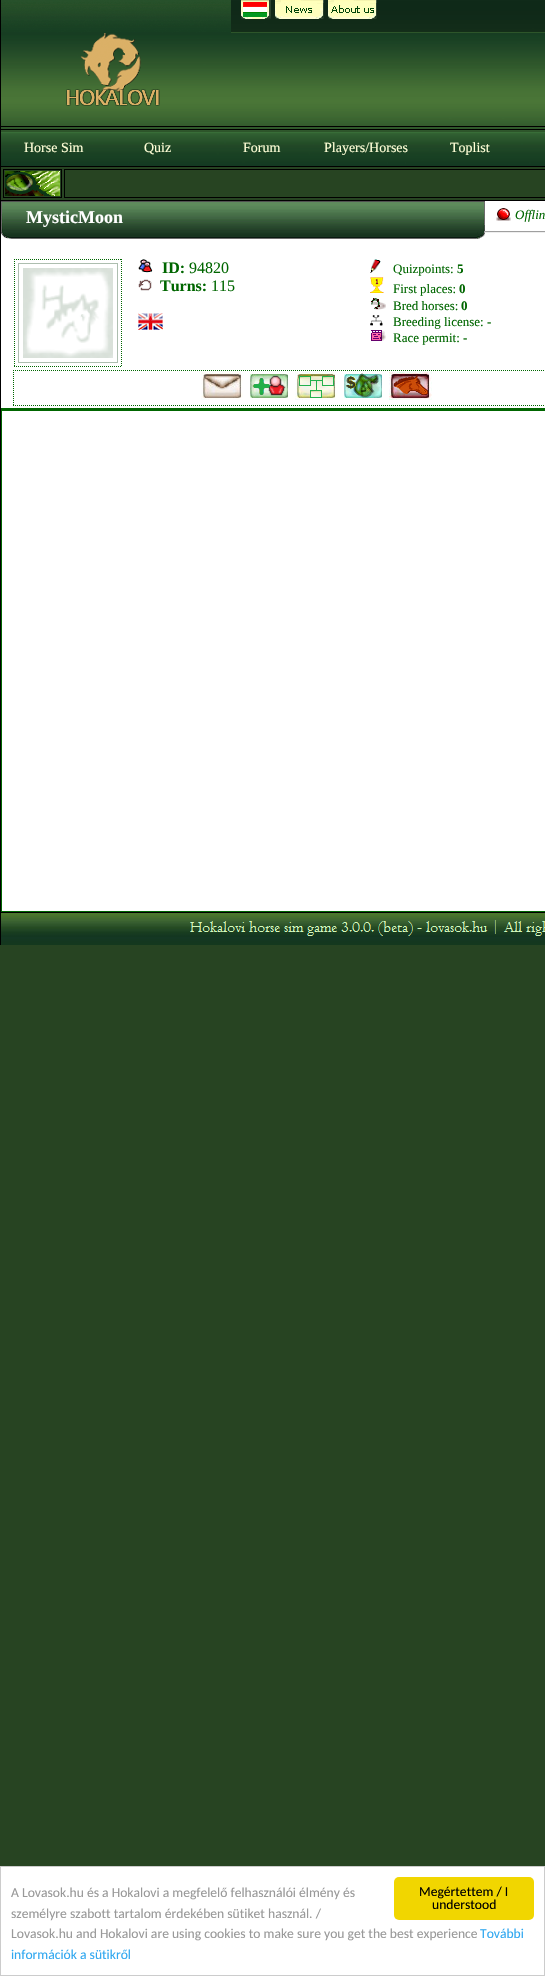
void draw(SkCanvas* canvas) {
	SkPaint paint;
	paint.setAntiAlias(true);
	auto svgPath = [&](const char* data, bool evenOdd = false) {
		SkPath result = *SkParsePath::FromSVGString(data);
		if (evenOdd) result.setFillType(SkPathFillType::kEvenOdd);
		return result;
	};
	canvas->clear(0xff274422);
	canvas->drawImageRect(SkImages::DeferredFromEncodedData(SkData::MakeFromFileName("img1.png")), SkRect::MakeXYWH(1, 0, 544, 166), SkSamplingOptions());
	paint.setColor(0xff000000);
	canvas->drawRect(SkRect::MakeXYWH(0, 166, 545, 1), paint);
	canvas->drawRect(SkRect::MakeXYWH(0, 0, 1, 167), paint);
	canvas->drawImageRect(SkImages::DeferredFromEncodedData(SkData::MakeFromFileName("img2.png")), SkRect::MakeXYWH(241, 0, 30, 19), SkSamplingOptions());
	canvas->drawImageRect(SkImages::DeferredFromEncodedData(SkData::MakeFromFileName("img3.png")), SkRect::MakeXYWH(275, 0, 49, 19), SkSamplingOptions());
	canvas->drawImageRect(SkImages::DeferredFromEncodedData(SkData::MakeFromFileName("img4.png")), SkRect::MakeXYWH(328, 0, 49, 19), SkSamplingOptions());
	canvas->drawImageRect(SkImages::DeferredFromEncodedData(SkData::MakeFromFileName("img5.png")), SkRect::MakeXYWH(66, 33, 94, 73), SkSamplingOptions());
	canvas->drawRect(SkRect::MakeXYWH(1, 126, 544, 1), paint);
	canvas->drawRect(SkRect::MakeXYWH(1, 129, 544, 1), paint);
	SkFont f1(fontMgr->matchFamilyStyle("Liberation Serif", SkFontStyle::Normal()), 14);
	f1.setSubpixel(true);
	paint.setColor(0xffffffd7);
	canvas->drawString("Horse Sim", 24, 152, f1, paint);
	canvas->drawString("Quiz", 144, 152, f1, paint);
	canvas->drawString("Forum", 243, 152, f1, paint);
	canvas->drawString("Players/Horses", 324, 152, f1, paint);
	canvas->drawString("Toplist", 450, 152, f1, paint);
	paint.setColor(0xff000000);
	canvas->drawRect(SkRect::MakeXYWH(0, 200, 545, 1), paint);
	canvas->drawRect(SkRect::MakeXYWH(0, 167, 1, 745), paint);
	paint.setStroke(true);
	paint.setStrokeWidth(1);
	canvas->drawRect(SkRect::MakeXYWH(3.5, 169.5, 58, 28), paint);
	canvas->drawImageRect(SkImages::DeferredFromEncodedData(SkData::MakeFromFileName("img6.png")), SkRect::MakeXYWH(5, 171, 55, 25), SkSamplingOptions());
	canvas->drawRect(SkRect::MakeXYWH(64.5, 169.5, 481, 28), paint);
	paint.setStroke(false);
	paint.setColor(0xffffffff);
	canvas->drawRect(SkRect::MakeXYWH(1, 201, 544, 710), paint);
	canvas->drawImageRect(SkImages::DeferredFromEncodedData(SkData::MakeFromFileName("img7.png")), SkRect::MakeXYWH(1, 201, 484, 38), SkSamplingOptions());
	SkFont f2(fontMgr->matchFamilyStyle("Liberation Serif", SkFontStyle::Bold()), 18);
	f2.setSubpixel(true);
	canvas->drawString("MysticMoon", 26, 223, f2, paint);
	canvas->drawImageRect(SkImages::DeferredFromEncodedData(SkData::MakeFromFileName("img8.png")), SkRect::MakeXYWH(496, 208, 15, 13), SkSamplingOptions());
	SkFont f3(fontMgr->matchFamilyStyle("Liberation Serif", SkFontStyle::Italic()), 13);
	f3.setSubpixel(true);
	paint.setColor(0xff006600);
	canvas->drawString("Offlin", 515, 219, f3, paint);
	paint.setColor(0xff9f9f9f);
	canvas->drawRect(SkRect::MakeXYWH(484, 231, 61, 1), paint);
	paint.setColor(0xffeeeeee);
	canvas->drawRect(SkRect::MakeXYWH(484, 232, 61, 1), paint);
	paint.setColor(0xff9f9f9f);
	canvas->drawRect(SkRect::MakeXYWH(484, 231, 1, 2), paint);
	paint.setStroke(true);
	paint.setColor(0xff006600);
	paint.setPathEffect(SkDashPathEffect::Make({{1, 1}}, 0));
	canvas->drawPath(svgPath("M14 259.5H122"), paint);
	paint.setPathEffect(nullptr);
	paint.setPathEffect(SkDashPathEffect::Make({{1, 1}}, 0));
	canvas->drawPath(svgPath("M121.5 259V367"), paint);
	paint.setPathEffect(nullptr);
	paint.setPathEffect(SkDashPathEffect::Make({{1, 1}}, 0));
	canvas->drawPath(svgPath("M14 366.5H122"), paint);
	paint.setPathEffect(nullptr);
	paint.setPathEffect(SkDashPathEffect::Make({{1, 1}}, 0));
	canvas->drawPath(svgPath("M14.5 259V367"), paint);
	paint.setPathEffect(nullptr);
	canvas->drawImageRect(SkImages::DeferredFromEncodedData(SkData::MakeFromFileName("img9.png")), SkRect::MakeXYWH(18, 263, 100, 100), SkSamplingOptions());
	canvas->drawImageRect(SkImages::DeferredFromEncodedData(SkData::MakeFromFileName("img10.png")), SkRect::MakeXYWH(138, 259, 15, 14), SkSamplingOptions());
	SkFont f4(fontMgr->matchFamilyStyle("Liberation Serif", SkFontStyle::Bold()), 16);
	f4.setSubpixel(true);
	paint.setStroke(false);
	canvas->drawString("ID:", 162, 273, f4, paint);
	SkFont f5(fontMgr->matchFamilyStyle("Liberation Serif", SkFontStyle::Normal()), 16);
	f5.setSubpixel(true);
	canvas->drawString("94820", 189, 273, f5, paint);
	canvas->drawImageRect(SkImages::DeferredFromEncodedData(SkData::MakeFromFileName("img11.png")), SkRect::MakeXYWH(138, 279, 14, 12), SkSamplingOptions());
	canvas->drawString("Turns:", 160, 291, f4, paint);
	canvas->drawString("115", 211, 291, f5, paint);
	canvas->drawImageRect(SkImages::DeferredFromEncodedData(SkData::MakeFromFileName("img12.png")), SkRect::MakeXYWH(138, 313, 25, 17), SkSamplingOptions());
	canvas->drawImageRect(SkImages::DeferredFromEncodedData(SkData::MakeFromFileName("img13.png")), SkRect::MakeXYWH(370, 259, 11, 14), SkSamplingOptions());
	SkFont f6(fontMgr->matchFamilyStyle("Liberation Serif", SkFontStyle::Normal()), 13);
	f6.setSubpixel(true);
	canvas->drawString("Quizpoints:", 393, 273, f6, paint);
	SkFont f7(fontMgr->matchFamilyStyle("Liberation Serif", SkFontStyle::Bold()), 13);
	f7.setSubpixel(true);
	canvas->drawString("5", 457, 273, f7, paint);
	canvas->drawImageRect(SkImages::DeferredFromEncodedData(SkData::MakeFromFileName("img14.png")), SkRect::MakeXYWH(370, 277, 14, 16), SkSamplingOptions());
	canvas->drawString("First places:", 393, 293, f6, paint);
	canvas->drawString("0", 459, 293, f7, paint);
	canvas->drawImageRect(SkImages::DeferredFromEncodedData(SkData::MakeFromFileName("img15.png")), SkRect::MakeXYWH(371, 298, 15, 12), SkSamplingOptions());
	canvas->drawString("Bred horses:", 393, 310, f6, paint);
	canvas->drawString("0", 461, 310, f7, paint);
	canvas->drawImageRect(SkImages::DeferredFromEncodedData(SkData::MakeFromFileName("img16.png")), SkRect::MakeXYWH(370, 315, 13, 11), SkSamplingOptions());
	canvas->drawString("Breeding license:", 393, 326, f6, paint);
	canvas->drawString("-", 487, 326, f7, paint);
	canvas->drawImageRect(SkImages::DeferredFromEncodedData(SkData::MakeFromFileName("img17.png")), SkRect::MakeXYWH(371, 330, 15, 11), SkSamplingOptions());
	canvas->drawString("Race permit:", 393, 342, f6, paint);
	canvas->drawString("-", 463, 342, f7, paint);
	paint.setStroke(true);
	paint.setPathEffect(SkDashPathEffect::Make({{1, 1}}, 0));
	canvas->drawPath(svgPath("M13 370.5H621"), paint);
	paint.setPathEffect(nullptr);
	paint.setPathEffect(SkDashPathEffect::Make({{1, 1}}, 0));
	canvas->drawPath(svgPath("M13 405.5H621"), paint);
	paint.setPathEffect(nullptr);
	paint.setPathEffect(SkDashPathEffect::Make({{1, 1}}, 0));
	canvas->drawPath(svgPath("M13.5 370V406"), paint);
	paint.setPathEffect(nullptr);
	canvas->drawImageRect(SkImages::DeferredFromEncodedData(SkData::MakeFromFileName("img18.png")), SkRect::MakeXYWH(201, 372, 42, 28), SkSamplingOptions());
	canvas->drawImageRect(SkImages::DeferredFromEncodedData(SkData::MakeFromFileName("img19.png")), SkRect::MakeXYWH(250, 374, 38, 24), SkSamplingOptions());
	canvas->drawImageRect(SkImages::DeferredFromEncodedData(SkData::MakeFromFileName("img20.png")), SkRect::MakeXYWH(295, 372, 42, 28), SkSamplingOptions());
	canvas->drawImageRect(SkImages::DeferredFromEncodedData(SkData::MakeFromFileName("img21.png")), SkRect::MakeXYWH(344, 373, 38, 25), SkSamplingOptions());
	canvas->drawImageRect(SkImages::DeferredFromEncodedData(SkData::MakeFromFileName("img22.png")), SkRect::MakeXYWH(389, 372, 43, 28), SkSamplingOptions());
	paint.setStroke(false);
	canvas->drawRect(SkRect::MakeXYWH(1, 408, 544, 2), paint);
	paint.setStroke(true);
	canvas->drawRect(SkRect::MakeXYWH(1.5, 410.5, 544, 501), paint);
	paint.setStroke(false);
	paint.setColor(0xff000000);
	canvas->drawRect(SkRect::MakeXYWH(0, 912, 545, 1), paint);
	canvas->drawRect(SkRect::MakeXYWH(0, 912, 1, 33), paint);
	canvas->drawImageRect(SkImages::DeferredFromEncodedData(SkData::MakeFromFileName("img23.png")), SkRect::MakeXYWH(1, 913, 544, 32), SkSamplingOptions());
	paint.setColor(0xffffffff);
	canvas->drawRect(SkRect::MakeXYWH(0.5, 1866.5, 544, 109), paint);
	paint.setStroke(true);
	paint.setColor(0xffcccccc);
	canvas->drawRect(SkRect::MakeXYWH(0.5, 1866.5, 544, 109), paint);
	paint.setStroke(false);
	paint.setColor(0xfff1d600);
	canvas->drawRoundRect(SkRect::MakeXYWH(394, 1877, 140, 43), 5, 5, paint);
	SkFont f8(fontMgr->matchFamilyStyle("Carlito", SkFontStyle::Normal()), 13.6);
	f8.setSubpixel(true);
	paint.setColor(0xff000000);
	canvas->drawString("Megértettem / I", 419, 1896, f8, paint);
	canvas->drawString("understood", 432, 1909, f8, paint);
	paint.setColor(0xff999999);
	canvas->drawString("A Lovasok.hu és a Hokalovi a megfelelő felhasználói élmény és", 11, 1897, f8, paint);
	canvas->drawString("személyre szabott tartalom érdekében sütiket használ. /", 11, 1918, f8, paint);
	canvas->drawString("Lovasok.hu and Hokalovi are using cookies to make sure you get the best experience", 11, 1938, f8, paint);
	paint.setColor(0xff31a8f0);
	canvas->drawString("További", 480, 1938, f8, paint);
	canvas->drawString("információk a sütikről", 11, 1959, f8, paint);
}
